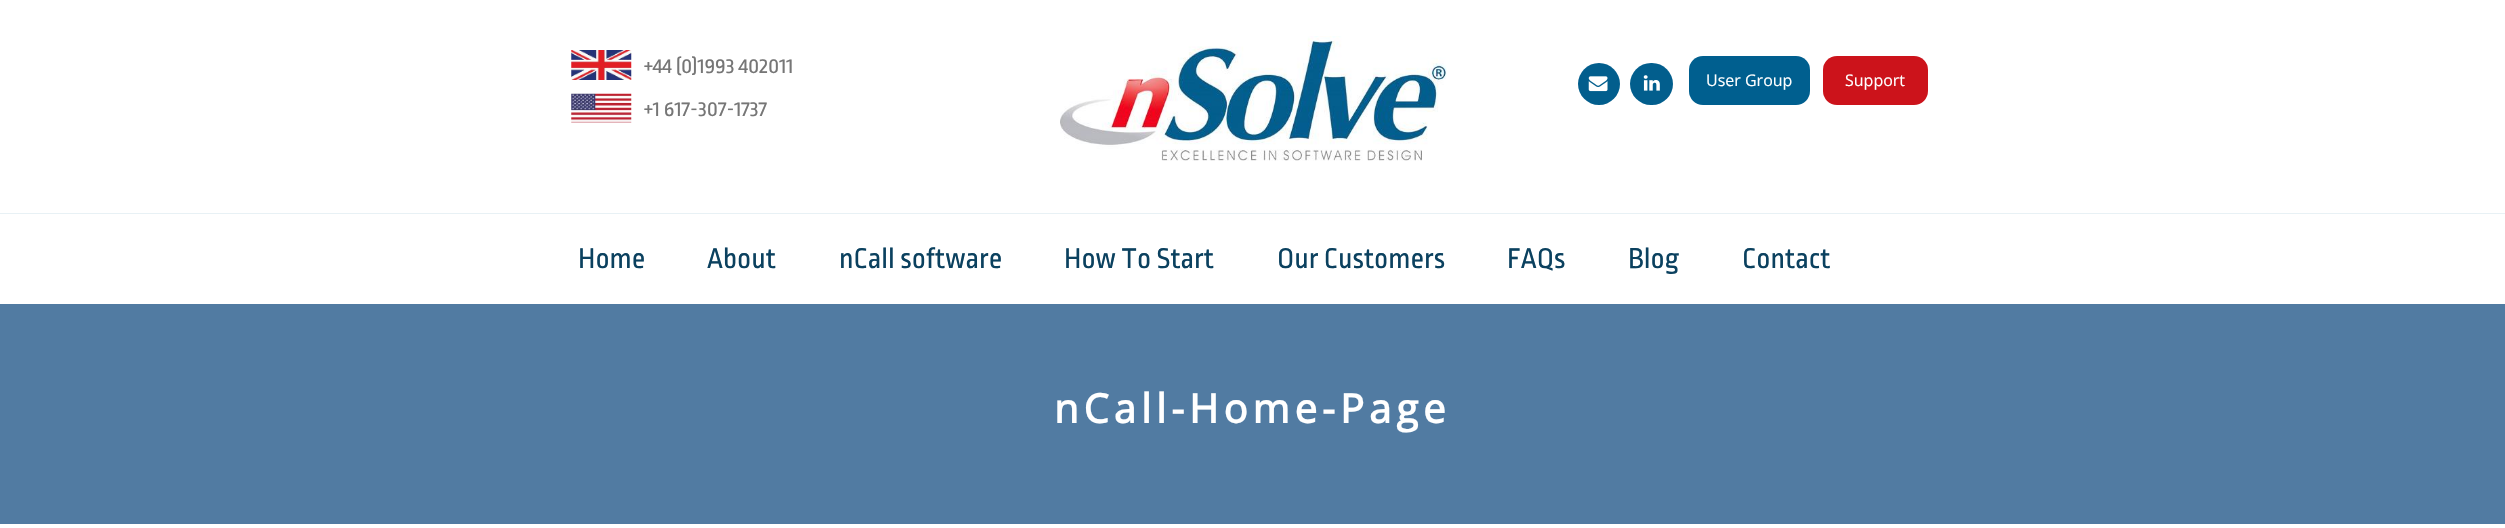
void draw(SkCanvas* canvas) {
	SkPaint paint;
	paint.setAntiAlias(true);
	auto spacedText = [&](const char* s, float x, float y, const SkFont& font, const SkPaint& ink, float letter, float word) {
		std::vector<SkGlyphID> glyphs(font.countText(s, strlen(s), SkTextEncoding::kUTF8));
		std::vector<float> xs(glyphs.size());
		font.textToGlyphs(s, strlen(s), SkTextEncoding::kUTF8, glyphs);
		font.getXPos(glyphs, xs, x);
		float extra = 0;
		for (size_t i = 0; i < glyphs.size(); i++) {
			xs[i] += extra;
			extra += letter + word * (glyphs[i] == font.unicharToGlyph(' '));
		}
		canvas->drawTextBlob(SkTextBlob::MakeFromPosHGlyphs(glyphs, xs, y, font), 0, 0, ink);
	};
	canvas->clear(0xffffffff);
	canvas->drawImageRect(SkImages::DeferredFromEncodedData(SkData::MakeFromFileName("img1.png")), SkRect::MakeXYWH(571, 50, 61, 30), SkSamplingOptions());
	SkFont f1(fontMgr->matchFamilyStyle("Ropa Sans", SkFontStyle::Normal()), 22.5);
	f1.setSubpixel(true);
	paint.setColor(0xff767676);
	canvas->drawString("+44 (0)1993 402011", 644, 73, f1, paint);
	canvas->drawImageRect(SkImages::DeferredFromEncodedData(SkData::MakeFromFileName("img2.png")), SkRect::MakeXYWH(571, 93, 61, 30), SkSamplingOptions());
	canvas->drawString("+1 617-307-1737", 644, 116, f1, paint);
	canvas->drawImageRect(SkImages::DeferredFromEncodedData(SkData::MakeFromFileName("img3.png")), SkRect::MakeXYWH(1060, 36, 387, 125), SkSamplingOptions());
	paint.setColor(0xff025e8d);
	canvas->drawCircle(1599, 84, 21, paint);
	canvas->drawImageRect(SkImages::DeferredFromEncodedData(SkData::MakeFromFileName("img4.png")), SkRect::MakeXYWH(1588, 76, 20, 16), SkSamplingOptions());
	canvas->drawRoundRect(SkRect::MakeXYWH(1630, 63, 43, 42), 21, 21, paint);
	canvas->drawImageRect(SkImages::DeferredFromEncodedData(SkData::MakeFromFileName("img5.png")), SkRect::MakeXYWH(1643, 75, 17, 16), SkSamplingOptions());
	paint.setColor(0xff005f8f);
	canvas->drawRoundRect(SkRect::MakeXYWH(1689, 56, 121, 49), 14, 14, paint);
	SkFont f2(fontMgr->matchFamilyStyle("Open Sans", SkFontStyle::Normal()), 16);
	f2.setSubpixel(true);
	paint.setColor(0xffffffff);
	canvas->drawString("User Group", 1706, 86, f2, paint);
	paint.setColor(0xffcc131b);
	canvas->drawRoundRect(SkRect::MakeXYWH(1823, 56, 105, 49), 14, 14, paint);
	paint.setColor(0xffffffff);
	canvas->drawString("Support", 1845, 86, f2, paint);
	paint.setColor(0xffe8f1f5);
	canvas->drawRect(SkRect::MakeXYWH(0, 213, 2505, 1), paint);
	SkFont f3(fontMgr->matchFamilyStyle("Ropa Sans", SkFontStyle::Normal()), 30);
	f3.setSubpixel(true);
	paint.setColor(0xff0b415f);
	canvas->drawString("Home", 578, 268, f3, paint);
	canvas->drawString("About", 707, 268, f3, paint);
	canvas->drawString("nCall software", 839, 268, f3, paint);
	canvas->drawString("How To Start", 1064, 268, f3, paint);
	canvas->drawString("Our Customers", 1277, 268, f3, paint);
	canvas->drawString("FAQs", 1507, 268, f3, paint);
	canvas->drawString("Blog", 1628, 268, f3, paint);
	canvas->drawString("Contact", 1742, 268, f3, paint);
	paint.setColor(0xff517ba2);
	canvas->drawRect(SkRect::MakeXYWH(0, 304, 2505, 220), paint);
	SkFont f4(fontMgr->matchFamilyStyle("Open Sans", SkFontStyle::Bold()), 40);
	f4.setSubpixel(true);
	paint.setColor(0xffffffff);
	spacedText("nCall-Home-Page", 1054, 423, f4, paint, 5, 0);
}
